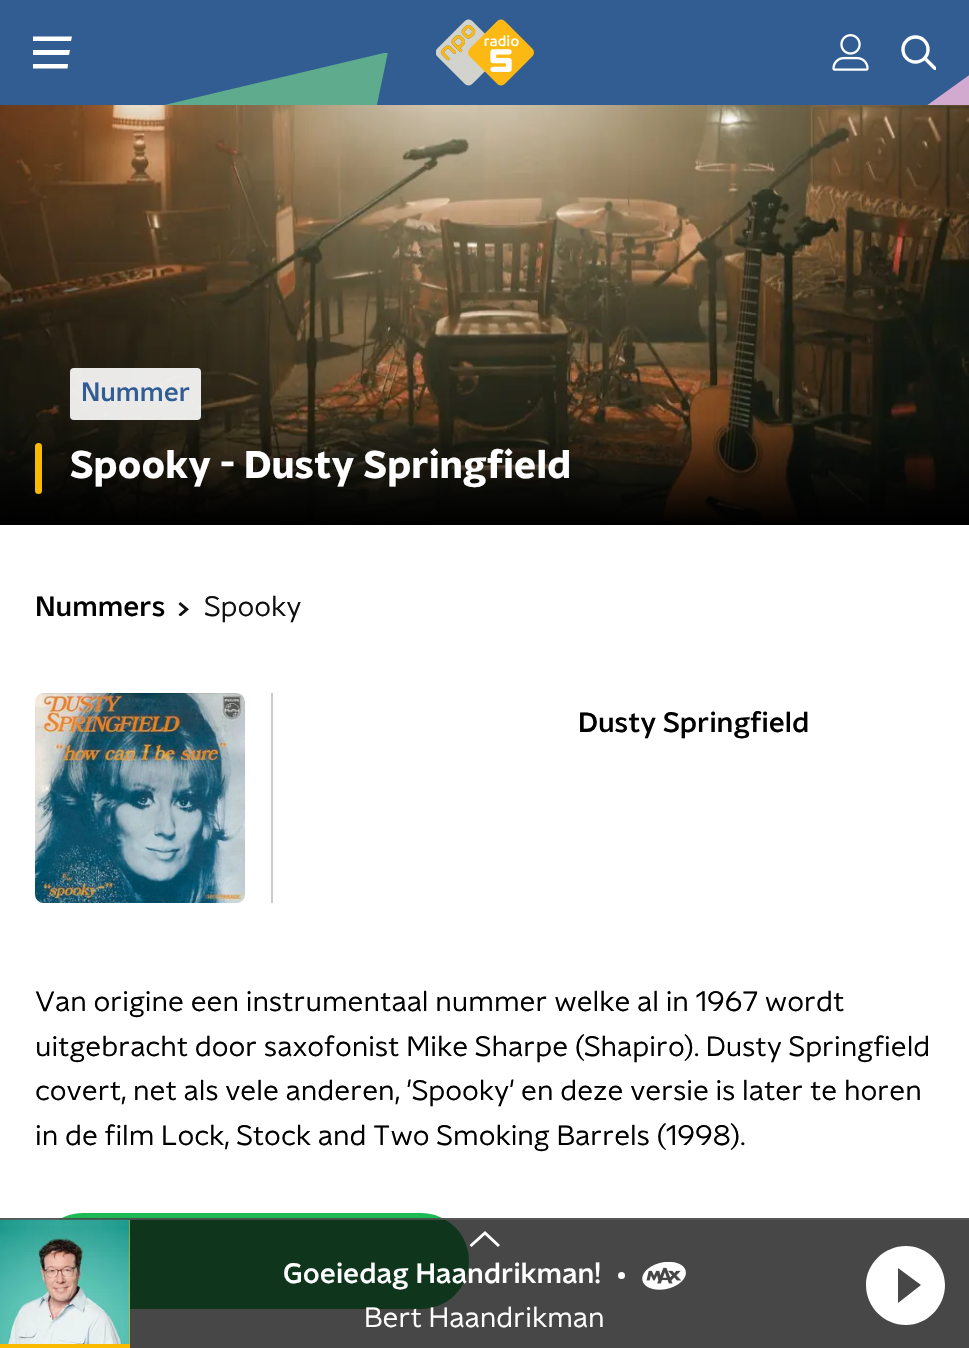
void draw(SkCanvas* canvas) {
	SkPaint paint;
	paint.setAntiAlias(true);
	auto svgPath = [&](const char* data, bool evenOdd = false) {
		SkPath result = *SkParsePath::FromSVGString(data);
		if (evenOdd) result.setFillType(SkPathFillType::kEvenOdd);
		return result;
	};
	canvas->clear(0xffffffff);
	paint.setColor(0xff325d92);
	canvas->drawRect(SkRect::MakeXYWH(0, 0, 969, 105), paint);
	paint.setColor(0xffffffff);
	canvas->drawPath(svgPath("M33 36.5H72L71 41H33ZM33 50H70L69 55H33ZM33 64H68L67.5 68.5H33Z"), paint);
	canvas->drawImageRect(SkImages::DeferredFromEncodedData(SkData::MakeFromFileName("img1.png")), SkRect::MakeXYWH(436, 19, 98, 67), SkSamplingOptions());
	canvas->drawImageRect(SkImages::DeferredFromEncodedData(SkData::MakeFromFileName("img2.png")), SkRect::MakeXYWH(832, 34, 37, 37), SkSamplingOptions());
	paint.setStroke(true);
	paint.setStrokeWidth(3.4);
	canvas->drawCircle(915.5, 49.5, 12.5, paint);
	canvas->save();
	canvas->clipRect(SkRect::MakeXYWH(901, 35, 35, 35));
	paint.setStrokeCap(SkPaint::kSquare_Cap);
	canvas->drawPath(svgPath("M925 58.5L935.5 69"), paint);
	canvas->restore();
	canvas->save();
	canvas->clipRect(SkRect::MakeXYWH(0, 53, 389, 52));
	paint.setStroke(false);
	paint.setColor(0xff5eab8d);
	canvas->drawPath(svgPath("M388 52L249 715L-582 912L-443 249Z"), paint);
	canvas->restore();
	canvas->save();
	canvas->clipRect(SkRect::MakeXYWH(0, 0, 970, 105));
	paint.setColor(0xffd2aad0);
	canvas->drawPath(svgPath("M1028 33L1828 705L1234 1065L305 552H304L305 551Z"), paint);
	canvas->restore();
	canvas->drawImageRect(SkImages::DeferredFromEncodedData(SkData::MakeFromFileName("img3.png")), SkRect::MakeXYWH(0, 105, 969, 420), SkSamplingOptions());
	paint.setColor(0xe6ffffff);
	canvas->drawRoundRect(SkRect::MakeXYWH(70, 368, 131, 52), 4, 4, paint);
	SkFont f1(fontMgr->matchFamilyStyle("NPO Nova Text", SkFontStyle(500, SkFontStyle::kNormal_Width, SkFontStyle::kUpright_Slant)), 26.25);
	f1.setSubpixel(true);
	paint.setColor(0xff325d92);
	canvas->drawString("Nummer", 81, 401, f1, paint);
	paint.setColor(0xfffaba00);
	canvas->drawRoundRect(SkRect::MakeXYWH(35, 443, 7, 51), 3.5, 3.5, paint);
	SkFont f2(fontMgr->matchFamilyStyle("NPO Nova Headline", SkFontStyle::Bold()), 38.5);
	f2.setSubpixel(true);
	paint.setColor(0xffffffff);
	canvas->drawString("Spooky - Dusty Springfield", 70, 478, f2, paint);
	SkFont f3(fontMgr->matchFamilyStyle("NPO Nova Text", SkFontStyle(500, SkFontStyle::kNormal_Width, SkFontStyle::kUpright_Slant)), 28);
	f3.setSubpixel(true);
	paint.setColor(0xff000000);
	canvas->drawString("Nummers", 35, 616, f3, paint);
	canvas->drawImageRect(SkImages::DeferredFromEncodedData(SkData::MakeFromFileName("img4.png")), SkRect::MakeXYWH(178, 602, 11, 14), SkSamplingOptions());
	SkFont f4(fontMgr->matchFamilyStyle("NPO Nova Text", SkFontStyle::Normal()), 28);
	f4.setSubpixel(true);
	paint.setColor(0xff101010);
	canvas->drawString("Spooky", 204, 616, f4, paint);
	canvas->drawImageRect(SkImages::DeferredFromEncodedData(SkData::MakeFromFileName("img5.png")), SkRect::MakeXYWH(35, 693, 210, 210), SkSamplingOptions());
	paint.setColor(0xffcccccc);
	canvas->drawRect(SkRect::MakeXYWH(271, 693, 2, 210), paint);
	paint.setColor(0xff000000);
	canvas->drawString("Dusty Springfield", 578, 732, f3, paint);
	canvas->drawString("Van origine een instrumentaal nummer welke al in 1967 wordt", 35, 1011, f4, paint);
	canvas->drawString("uitgebracht door saxofonist Mike Sharpe (Shapiro). Dusty Springfield", 35, 1056, f4, paint);
	canvas->drawString("covert, net als vele anderen, 'Spooky' en deze versie is later te horen", 35, 1100, f4, paint);
	canvas->drawString("in de film Lock, Stock and Two Smoking Barrels (1998).", 35, 1145, f4, paint);
	paint.setColor(0xff1db954);
	canvas->drawRoundRect(SkRect::MakeXYWH(35, 1213, 434, 96), 48, 48, paint);
	paint.setColor(0xbf090909);
	canvas->drawRect(SkRect::MakeXYWH(0, 1218, 969, 130), paint);
	paint.setColor(0xa65f5f5f);
	canvas->drawRect(SkRect::MakeXYWH(0, 1218, 969, 2), paint);
	paint.setColor(0xfffaba00);
	canvas->drawRect(SkRect::MakeXYWH(129, 1220, 1, 124), paint);
	canvas->drawImageRect(SkImages::DeferredFromEncodedData(SkData::MakeFromFileName("img6.png")), SkRect::MakeXYWH(0, 1219, 130, 125), SkSamplingOptions());
	canvas->drawRect(SkRect::MakeXYWH(0, 1344, 130, 4), paint);
	paint.setStroke(true);
	paint.setStrokeWidth(2.9);
	paint.setStrokeCap(SkPaint::kButt_Cap);
	paint.setColor(0xffffffff);
	canvas->drawPath(svgPath("M499 1246L485 1233L470.5 1246"), paint);
	paint.setStroke(false);
	canvas->drawString("Goeiedag Haandrikman!", 283, 1283, f3, paint);
	canvas->drawCircle(621.5, 1275.5, 3.5, paint);
	canvas->drawImageRect(SkImages::DeferredFromEncodedData(SkData::MakeFromFileName("img7.png")), SkRect::MakeXYWH(642, 1262, 44, 28), SkSamplingOptions());
	canvas->drawString("Bert Haandrikman", 364, 1327, f4, paint);
	canvas->drawPath(svgPath("M906 1246C884 1246 866 1264 866 1285C866 1307 884 1325 906 1325C927 1325 945 1307 945 1285C945 1264 927 1246 906 1246ZM898 1303V1268L921 1285Z"), paint);
}
